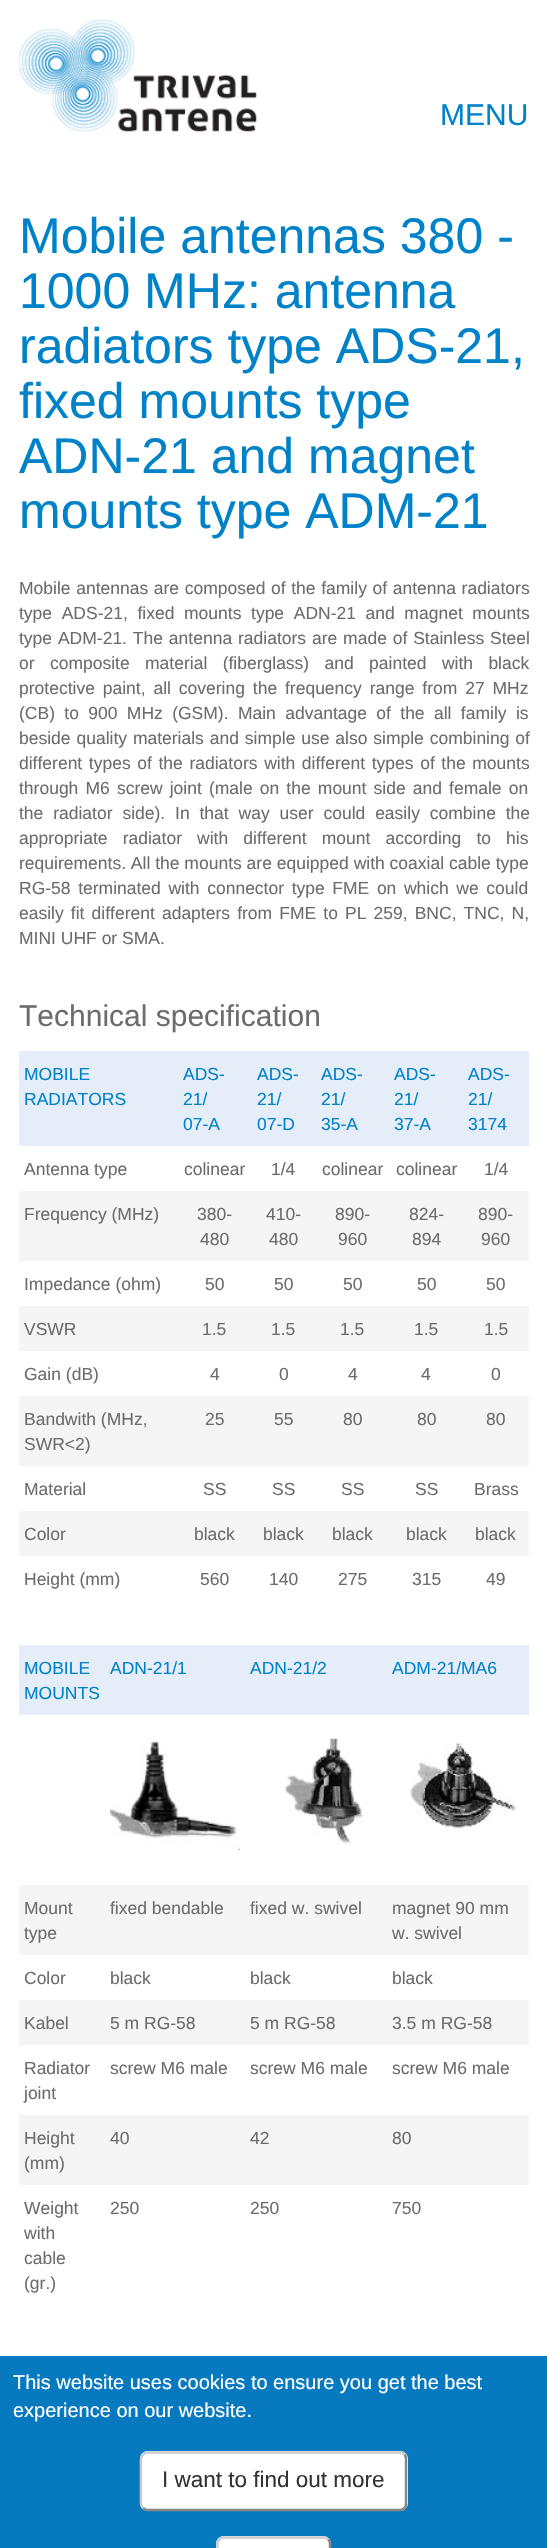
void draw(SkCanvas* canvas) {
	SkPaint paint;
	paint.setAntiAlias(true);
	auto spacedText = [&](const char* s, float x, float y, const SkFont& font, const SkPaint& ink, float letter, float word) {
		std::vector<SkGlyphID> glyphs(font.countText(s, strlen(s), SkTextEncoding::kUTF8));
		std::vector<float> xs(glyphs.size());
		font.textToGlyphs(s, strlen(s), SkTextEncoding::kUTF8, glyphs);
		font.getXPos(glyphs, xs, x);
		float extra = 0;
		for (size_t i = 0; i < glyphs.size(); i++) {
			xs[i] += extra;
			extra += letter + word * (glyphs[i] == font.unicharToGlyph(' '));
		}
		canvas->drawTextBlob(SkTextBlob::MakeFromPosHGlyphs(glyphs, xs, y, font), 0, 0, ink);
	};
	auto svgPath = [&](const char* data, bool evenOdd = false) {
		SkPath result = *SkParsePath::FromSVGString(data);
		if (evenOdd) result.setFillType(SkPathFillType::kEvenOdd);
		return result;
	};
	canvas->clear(0xffffffff);
	canvas->drawImageRect(SkImages::DeferredFromEncodedData(SkData::MakeFromFileName("img1.png")), SkRect::MakeXYWH(18, 20, 239, 112), SkSamplingOptions());
	SkFont f1(fontMgr->matchFamilyStyle("Liberation Sans", SkFontStyle::Normal()), 30);
	f1.setSubpixel(true);
	paint.setColor(0xff0082c9);
	canvas->drawString("MENU", 440, 125, f1, paint);
	SkFont f2(fontMgr->matchFamilyStyle("Liberation Sans", SkFontStyle::Normal()), 50);
	f2.setSubpixel(true);
	canvas->drawString("Mobile antennas 380 -", 19, 253, f2, paint);
	canvas->drawString("1000 MHz: antenna", 19, 308, f2, paint);
	canvas->drawString("radiators type ADS-21,", 19, 363, f2, paint);
	canvas->drawString("fixed mounts type", 19, 418, f2, paint);
	canvas->drawString("ADN-21 and magnet", 19, 473, f2, paint);
	canvas->drawString("mounts type ADM-21", 19, 528, f2, paint);
	SkFont f3(fontMgr->matchFamilyStyle("Liberation Sans", SkFontStyle::Normal()), 17.5);
	f3.setSubpixel(true);
	paint.setColor(0xff6c6c6c);
	spacedText("Mobile antennas are composed of the family of antenna radiators", 19, 594, f3, paint, 0, 0.75);
	spacedText("type ADS-21, fixed mounts type ADN-21 and magnet mounts", 19, 619, f3, paint, 0, 4.75);
	spacedText("type ADM-21. The antenna radiators are made of Stainless Steel", 19, 644, f3, paint, 0, 1);
	spacedText("or composite material (fiberglass) and painted with black", 19, 669, f3, paint, 0, 10.5);
	spacedText("protective paint, all covering the frequency range from 27 MHz", 19, 694, f3, paint, 0, 3);
	spacedText("(CB) to 900 MHz (GSM). Main advantage of the all family is", 19, 719, f3, paint, 0, 4.5);
	spacedText("beside quality materials and simple use also simple combining of", 19, 744, f3, paint, 0, 1);
	spacedText("different types of the radiators with different types of the mounts", 19, 769, f3, paint, 0, 1.75);
	spacedText("through M6 screw joint (male on the mount side and female on", 19, 794, f3, paint, 0, 2.25);
	spacedText("the radiator side). In that way user could easily combine the", 19, 819, f3, paint, 0, 5);
	spacedText("appropriate radiator with different mount according to his", 19, 844, f3, paint, 0, 10.25);
	canvas->drawString("requirements. All the mounts are equipped with coaxial cable type", 19, 869, f3, paint);
	spacedText("RG-58 terminated with connector type FME on which we could", 19, 894, f3, paint, 0, 2.75);
	spacedText("easily fit different adapters from FME to PL 259, BNC, TNC, N,", 19, 919, f3, paint, 0, 2.25);
	canvas->drawString("MINI UHF or SMA.", 19, 944, f3, paint);
	canvas->drawString("Technical specification", 19, 1026, f1, paint);
	paint.setColor(0xffe5edf9);
	canvas->drawRect(SkRect::MakeXYWH(19, 1051, 510, 95), paint);
	paint.setColor(0xff0082c9);
	canvas->drawString("MOBILE", 24, 1080, f3, paint);
	canvas->drawString("RADIATORS", 24, 1105, f3, paint);
	canvas->drawString("ADS-", 183, 1080, f3, paint);
	canvas->drawString("21/", 183, 1105, f3, paint);
	canvas->drawString("07-A", 183, 1130, f3, paint);
	canvas->drawString("ADS-", 257, 1080, f3, paint);
	canvas->drawString("21/", 257, 1105, f3, paint);
	canvas->drawString("07-D", 257, 1130, f3, paint);
	canvas->drawString("ADS-", 321, 1080, f3, paint);
	canvas->drawString("21/", 321, 1105, f3, paint);
	canvas->drawString("35-A", 321, 1130, f3, paint);
	canvas->drawString("ADS-", 394, 1080, f3, paint);
	canvas->drawString("21/", 394, 1105, f3, paint);
	canvas->drawString("37-A", 394, 1130, f3, paint);
	canvas->drawString("ADS-", 468, 1080, f3, paint);
	canvas->drawString("21/", 468, 1105, f3, paint);
	canvas->drawString("3174", 468, 1130, f3, paint);
	paint.setColor(0xff6c6c6c);
	canvas->drawString("Antenna type", 24, 1175, f3, paint);
	canvas->drawString("colinear", 184, 1175, f3, paint);
	canvas->drawString("1/4", 271, 1175, f3, paint);
	canvas->drawString("colinear", 322, 1175, f3, paint);
	canvas->drawString("colinear", 396, 1175, f3, paint);
	canvas->drawString("1/4", 484, 1175, f3, paint);
	paint.setColor(0xfff5f5f5);
	canvas->drawRect(SkRect::MakeXYWH(19, 1191, 510, 70), paint);
	paint.setColor(0xff6c6c6c);
	canvas->drawString("Frequency (MHz)", 24, 1220, f3, paint);
	canvas->drawString("380-", 197, 1220, f3, paint);
	canvas->drawString("480", 200, 1245, f3, paint);
	canvas->drawString("410-", 266, 1220, f3, paint);
	canvas->drawString("480", 269, 1245, f3, paint);
	canvas->drawString("890-", 335, 1220, f3, paint);
	canvas->drawString("960", 338, 1245, f3, paint);
	canvas->drawString("824-", 409, 1220, f3, paint);
	canvas->drawString("894", 412, 1245, f3, paint);
	canvas->drawString("890-", 478, 1220, f3, paint);
	canvas->drawString("960", 481, 1245, f3, paint);
	canvas->drawString("Impedance (ohm)", 24, 1290, f3, paint);
	canvas->drawString("50", 205, 1290, f3, paint);
	canvas->drawString("50", 274, 1290, f3, paint);
	canvas->drawString("50", 343, 1290, f3, paint);
	canvas->drawString("50", 417, 1290, f3, paint);
	canvas->drawString("50", 486, 1290, f3, paint);
	paint.setColor(0xfff5f5f5);
	canvas->drawRect(SkRect::MakeXYWH(19, 1306, 510, 45), paint);
	paint.setColor(0xff6c6c6c);
	canvas->drawString("VSWR", 24, 1335, f3, paint);
	canvas->drawString("1.5", 202, 1335, f3, paint);
	canvas->drawString("1.5", 271, 1335, f3, paint);
	canvas->drawString("1.5", 340, 1335, f3, paint);
	canvas->drawString("1.5", 414, 1335, f3, paint);
	canvas->drawString("1.5", 484, 1335, f3, paint);
	canvas->drawString("Gain (dB)", 24, 1380, f3, paint);
	canvas->drawString("4", 210, 1380, f3, paint);
	canvas->drawString("0", 279, 1380, f3, paint);
	canvas->drawString("4", 348, 1380, f3, paint);
	canvas->drawString("4", 421, 1380, f3, paint);
	canvas->drawString("0", 491, 1380, f3, paint);
	paint.setColor(0xfff5f5f5);
	canvas->drawRect(SkRect::MakeXYWH(19, 1396, 510, 70), paint);
	paint.setColor(0xff6c6c6c);
	canvas->drawString("Bandwith (MHz,", 24, 1425, f3, paint);
	canvas->drawString("SWR<2)", 24, 1450, f3, paint);
	canvas->drawString("25", 205, 1425, f3, paint);
	canvas->drawString("55", 274, 1425, f3, paint);
	canvas->drawString("80", 343, 1425, f3, paint);
	canvas->drawString("80", 417, 1425, f3, paint);
	canvas->drawString("80", 486, 1425, f3, paint);
	canvas->drawString("Material", 24, 1495, f3, paint);
	canvas->drawString("SS", 203, 1495, f3, paint);
	canvas->drawString("SS", 272, 1495, f3, paint);
	canvas->drawString("SS", 341, 1495, f3, paint);
	canvas->drawString("SS", 415, 1495, f3, paint);
	canvas->drawString("Brass", 474, 1495, f3, paint);
	paint.setColor(0xfff5f5f5);
	canvas->drawRect(SkRect::MakeXYWH(19, 1511, 510, 45), paint);
	paint.setColor(0xff6c6c6c);
	canvas->drawString("Color", 24, 1540, f3, paint);
	canvas->drawString("black", 194, 1540, f3, paint);
	canvas->drawString("black", 263, 1540, f3, paint);
	canvas->drawString("black", 332, 1540, f3, paint);
	canvas->drawString("black", 406, 1540, f3, paint);
	canvas->drawString("black", 475, 1540, f3, paint);
	canvas->drawString("Height (mm)", 24, 1585, f3, paint);
	canvas->drawString("560", 200, 1585, f3, paint);
	canvas->drawString("140", 269, 1585, f3, paint);
	canvas->drawString("275", 338, 1585, f3, paint);
	canvas->drawString("315", 412, 1585, f3, paint);
	canvas->drawString("49", 486, 1585, f3, paint);
	paint.setColor(0xffe5edf9);
	canvas->drawRect(SkRect::MakeXYWH(19, 1645, 510, 70), paint);
	paint.setColor(0xff0082c9);
	canvas->drawString("MOBILE", 24, 1674, f3, paint);
	canvas->drawString("MOUNTS", 24, 1699, f3, paint);
	canvas->drawString("ADN-21/1", 110, 1674, f3, paint);
	canvas->drawString("ADN-21/2", 250, 1674, f3, paint);
	canvas->drawString("ADM-21/MA6", 392, 1674, f3, paint);
	canvas->drawImageRect(SkImages::DeferredFromEncodedData(SkData::MakeFromFileName("img2.png")), SkRect::MakeXYWH(110, 1738, 130, 112), SkSamplingOptions());
	canvas->drawImageRect(SkImages::DeferredFromEncodedData(SkData::MakeFromFileName("img3.png")), SkRect::MakeXYWH(284, 1738, 80, 106), SkSamplingOptions());
	canvas->drawImageRect(SkImages::DeferredFromEncodedData(SkData::MakeFromFileName("img4.png")), SkRect::MakeXYWH(410, 1742, 106, 86), SkSamplingOptions());
	paint.setColor(0xfff5f5f5);
	canvas->drawRect(SkRect::MakeXYWH(19, 1885, 510, 70), paint);
	paint.setColor(0xff6c6c6c);
	canvas->drawString("Mount", 24, 1914, f3, paint);
	canvas->drawString("type", 24, 1939, f3, paint);
	canvas->drawString("fixed bendable", 110, 1914, f3, paint);
	canvas->drawString("fixed w. swivel", 250, 1914, f3, paint);
	canvas->drawString("magnet 90 mm", 392, 1914, f3, paint);
	canvas->drawString("w. swivel", 392, 1939, f3, paint);
	canvas->drawString("Color", 24, 1984, f3, paint);
	canvas->drawString("black", 110, 1984, f3, paint);
	canvas->drawString("black", 250, 1984, f3, paint);
	canvas->drawString("black", 392, 1984, f3, paint);
	paint.setColor(0xfff5f5f5);
	canvas->drawRect(SkRect::MakeXYWH(19, 2000, 510, 45), paint);
	paint.setColor(0xff6c6c6c);
	canvas->drawString("Kabel", 24, 2029, f3, paint);
	canvas->drawString("5 m RG-58", 110, 2029, f3, paint);
	canvas->drawString("5 m RG-58", 250, 2029, f3, paint);
	canvas->drawString("3.5 m RG-58", 392, 2029, f3, paint);
	canvas->drawString("Radiator", 24, 2074, f3, paint);
	canvas->drawString("joint", 24, 2099, f3, paint);
	canvas->drawString("screw M6 male", 110, 2074, f3, paint);
	canvas->drawString("screw M6 male", 250, 2074, f3, paint);
	canvas->drawString("screw M6 male", 392, 2074, f3, paint);
	paint.setColor(0xfff5f5f5);
	canvas->drawRect(SkRect::MakeXYWH(19, 2115, 510, 70), paint);
	paint.setColor(0xff6c6c6c);
	canvas->drawString("Height", 24, 2144, f3, paint);
	canvas->drawString("(mm)", 24, 2169, f3, paint);
	canvas->drawString("40", 110, 2144, f3, paint);
	canvas->drawString("42", 250, 2144, f3, paint);
	canvas->drawString("80", 392, 2144, f3, paint);
	canvas->drawString("Weight", 24, 2214, f3, paint);
	canvas->drawString("with", 24, 2239, f3, paint);
	canvas->drawString("cable", 24, 2264, f3, paint);
	canvas->drawString("(gr.)", 24, 2289, f3, paint);
	canvas->drawString("250", 110, 2214, f3, paint);
	canvas->drawString("250", 250, 2214, f3, paint);
	canvas->drawString("750", 392, 2214, f3, paint);
	paint.setColor(0xff0779bf);
	canvas->drawRect(SkRect::MakeXYWH(0, 2356, 547, 192), paint);
	SkFont f4(fontMgr->matchFamilyStyle("Liberation Sans", SkFontStyle::Normal()), 20);
	f4.setSubpixel(true);
	paint.setColor(0xffffffff);
	canvas->drawString("This website uses cookies to ensure you get the best", 13, 2389, f4, paint);
	canvas->drawString("experience on our website.", 13, 2417, f4, paint);
	canvas->drawRoundRect(SkRect::MakeXYWH(140, 2451, 268, 60), 8, 8, paint);
	paint.setStroke(true);
	paint.setStrokeWidth(2.5);
	paint.setColor(0xff888888);
	canvas->drawPath(svgPath("M404.5 2454.5C405.5 2455.5 406 2457 406 2459V2504C406 2505.5 405.5 2507 404.5 2508C403 2509.5 401.5 2510 400 2510H147.5C146 2510 144.5 2509.5 143 2508"), paint);
	paint.setColor(0xffcccccc);
	canvas->drawPath(svgPath("M143 2508C142 2507 141 2505.5 141 2504V2459C141 2457 142 2455.5 143 2454.5C144.5 2453 146 2452.5 147.5 2452.5H400C401.5 2452.5 403 2453 404.5 2454.5"), paint);
	SkFont f5(fontMgr->matchFamilyStyle("Liberation Sans", SkFontStyle::Normal()), 22.5);
	f5.setSubpixel(true);
	paint.setStroke(false);
	paint.setColor(0xff333333);
	canvas->drawString("I want to find out more", 162, 2487, f5, paint);
	paint.setColor(0xffffffff);
	canvas->drawRoundRect(SkRect::MakeXYWH(216, 2536, 115, 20), 8, 8, paint);
	paint.setStroke(true);
	paint.setColor(0xff888888);
	canvas->drawPath(svgPath("M328 2539.5C329.5 2540.5 330 2542 330 2544V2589C330 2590.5 329.5 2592 328 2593C327 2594.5 325.5 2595 324 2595H224C222 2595 220.5 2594.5 219.5 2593"), paint);
	paint.setColor(0xffcccccc);
	canvas->drawPath(svgPath("M219.5 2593C218 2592 217.5 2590.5 217.5 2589V2544C217.5 2542 218 2540.5 219.5 2539.5C220.5 2538 222 2537.5 224 2537.5H324C325.5 2537.5 327 2538 328 2539.5"), paint);
}
